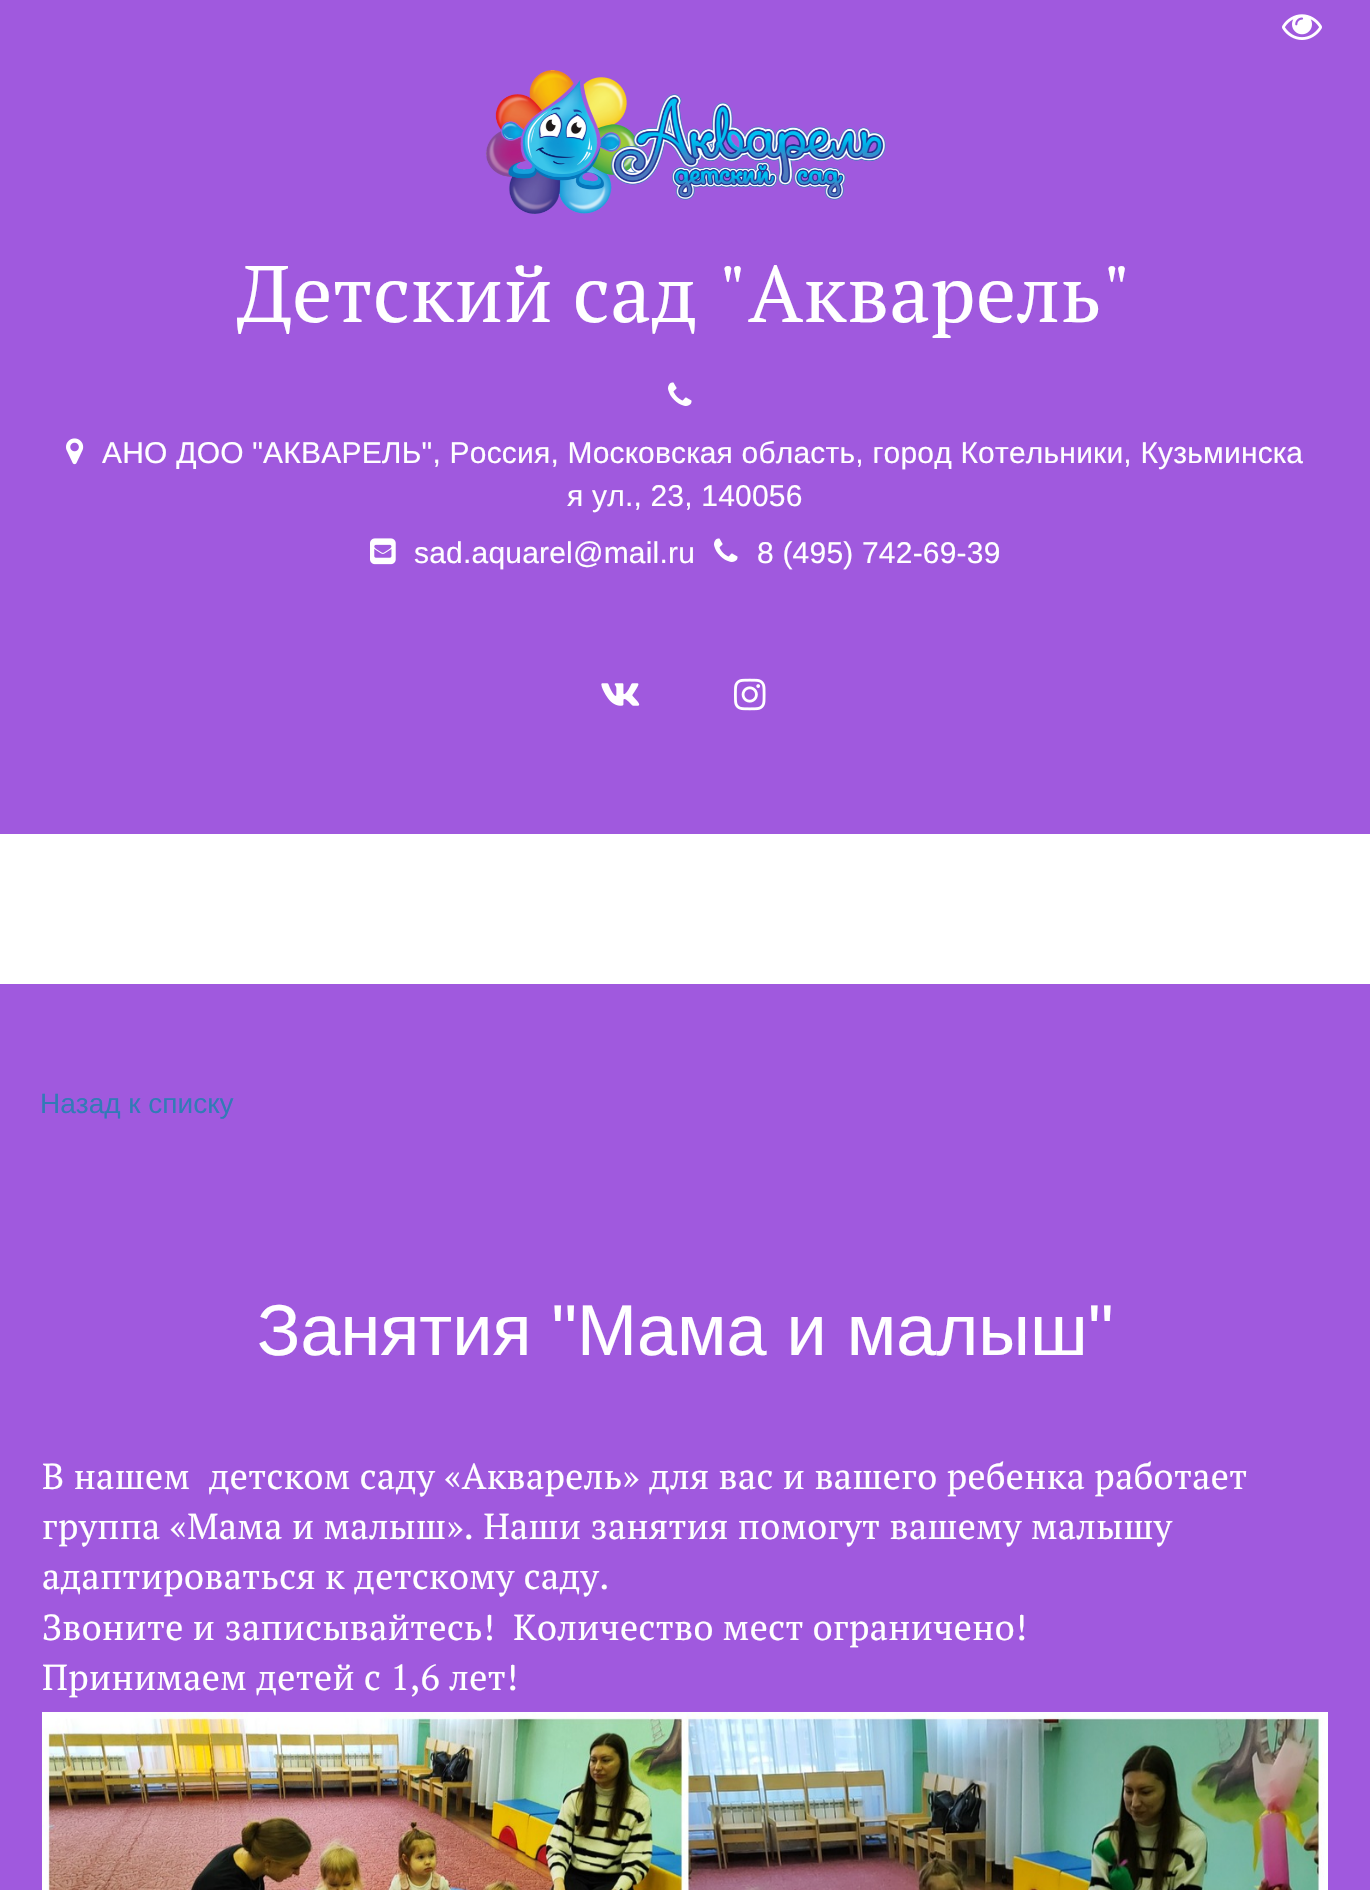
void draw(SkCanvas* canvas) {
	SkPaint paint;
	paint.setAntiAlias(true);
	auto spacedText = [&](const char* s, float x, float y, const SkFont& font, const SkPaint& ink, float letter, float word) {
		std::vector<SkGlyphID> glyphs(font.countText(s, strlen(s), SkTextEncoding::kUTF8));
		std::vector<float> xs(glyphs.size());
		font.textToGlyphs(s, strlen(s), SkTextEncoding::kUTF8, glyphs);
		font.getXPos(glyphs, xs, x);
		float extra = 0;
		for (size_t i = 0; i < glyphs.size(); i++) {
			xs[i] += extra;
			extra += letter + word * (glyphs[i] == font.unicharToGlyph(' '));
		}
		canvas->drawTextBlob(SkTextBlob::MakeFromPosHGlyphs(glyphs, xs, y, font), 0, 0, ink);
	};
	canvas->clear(0xffa059de);
	canvas->drawImageRect(SkImages::DeferredFromEncodedData(SkData::MakeFromFileName("img1.png")), SkRect::MakeXYWH(1282, 14, 40, 26), SkSamplingOptions());
	canvas->drawImageRect(SkImages::DeferredFromEncodedData(SkData::MakeFromFileName("img2.png")), SkRect::MakeXYWH(485, 70, 401, 144), SkSamplingOptions());
	SkFont f1(fontMgr->matchFamilyStyle("PT Serif", SkFontStyle::Normal()), 80);
	f1.setSubpixel(true);
	paint.setColor(0xffffffff);
	spacedText("Детский сад \"Акварель\"", 237, 322, f1, paint, 0.4, 0);
	canvas->drawImageRect(SkImages::DeferredFromEncodedData(SkData::MakeFromFileName("img3.png")), SkRect::MakeXYWH(668, 382, 24, 24), SkSamplingOptions());
	canvas->drawImageRect(SkImages::DeferredFromEncodedData(SkData::MakeFromFileName("img4.png")), SkRect::MakeXYWH(66, 438, 18, 27), SkSamplingOptions());
	SkFont f2(fontMgr->matchFamilyStyle("Liberation Sans", SkFontStyle::Normal()), 30);
	f2.setSubpixel(true);
	spacedText("АНО ДОО \"АКВАРЕЛЬ\", Россия, Московская область, город Котельники, Кузьминска", 102, 463, f2, paint, 0.2, 0);
	spacedText("я ул., 23, 140056", 567, 506, f2, paint, 0.2, 0);
	canvas->drawImageRect(SkImages::DeferredFromEncodedData(SkData::MakeFromFileName("img5.png")), SkRect::MakeXYWH(370, 538, 26, 27), SkSamplingOptions());
	spacedText("sad.aquarel@mail.ru", 414, 563, f2, paint, 0.2, 0);
	canvas->drawImageRect(SkImages::DeferredFromEncodedData(SkData::MakeFromFileName("img3.png")), SkRect::MakeXYWH(714, 538, 24, 24), SkSamplingOptions());
	spacedText("8 (495) 742-69-39", 757, 563, f2, paint, 0.2, 0);
	canvas->drawImageRect(SkImages::DeferredFromEncodedData(SkData::MakeFromFileName("img6.png")), SkRect::MakeXYWH(601, 683, 39, 23), SkSamplingOptions());
	canvas->drawImageRect(SkImages::DeferredFromEncodedData(SkData::MakeFromFileName("img7.png")), SkRect::MakeXYWH(734, 678, 32, 33), SkSamplingOptions());
	canvas->drawRect(SkRect::MakeXYWH(0, 834, 1370, 150), paint);
	SkFont f3(fontMgr->matchFamilyStyle("Liberation Sans", SkFontStyle::Normal()), 28);
	f3.setSubpixel(true);
	paint.setColor(0xff337ab7);
	canvas->drawString("Назад к списку", 40, 1113, f3, paint);
	SkFont f4(fontMgr->matchFamilyStyle("Liberation Sans", SkFontStyle::Normal()), 72);
	f4.setSubpixel(true);
	paint.setColor(0xffffffff);
	canvas->drawString("Занятия \"Мама и малыш\"", 257, 1355, f4, paint);
	SkFont f5(fontMgr->matchFamilyStyle("PT Serif", SkFontStyle::Normal()), 36);
	f5.setSubpixel(true);
	spacedText("В нашем  детском саду «Акварель» для вас и вашего ребенка работает", 42, 1489, f5, paint, 0.4, 0);
	spacedText("группа «Мама и малыш». Наши занятия помогут вашему малышу", 42, 1539, f5, paint, 0.4, 0);
	spacedText("адаптироваться к детскому саду.", 42, 1589, f5, paint, 0.4, 0);
	spacedText("Звоните и записывайтесь!  Количество мест ограничено!", 42, 1640, f5, paint, 0.4, 0);
	spacedText("Принимаем детей с 1,6 лет!", 42, 1690, f5, paint, 0.4, 0);
	canvas->drawImageRect(SkImages::DeferredFromEncodedData(SkData::MakeFromFileName("img8.png")), SkRect::MakeXYWH(42, 1712, 1286, 178), SkSamplingOptions());
}
